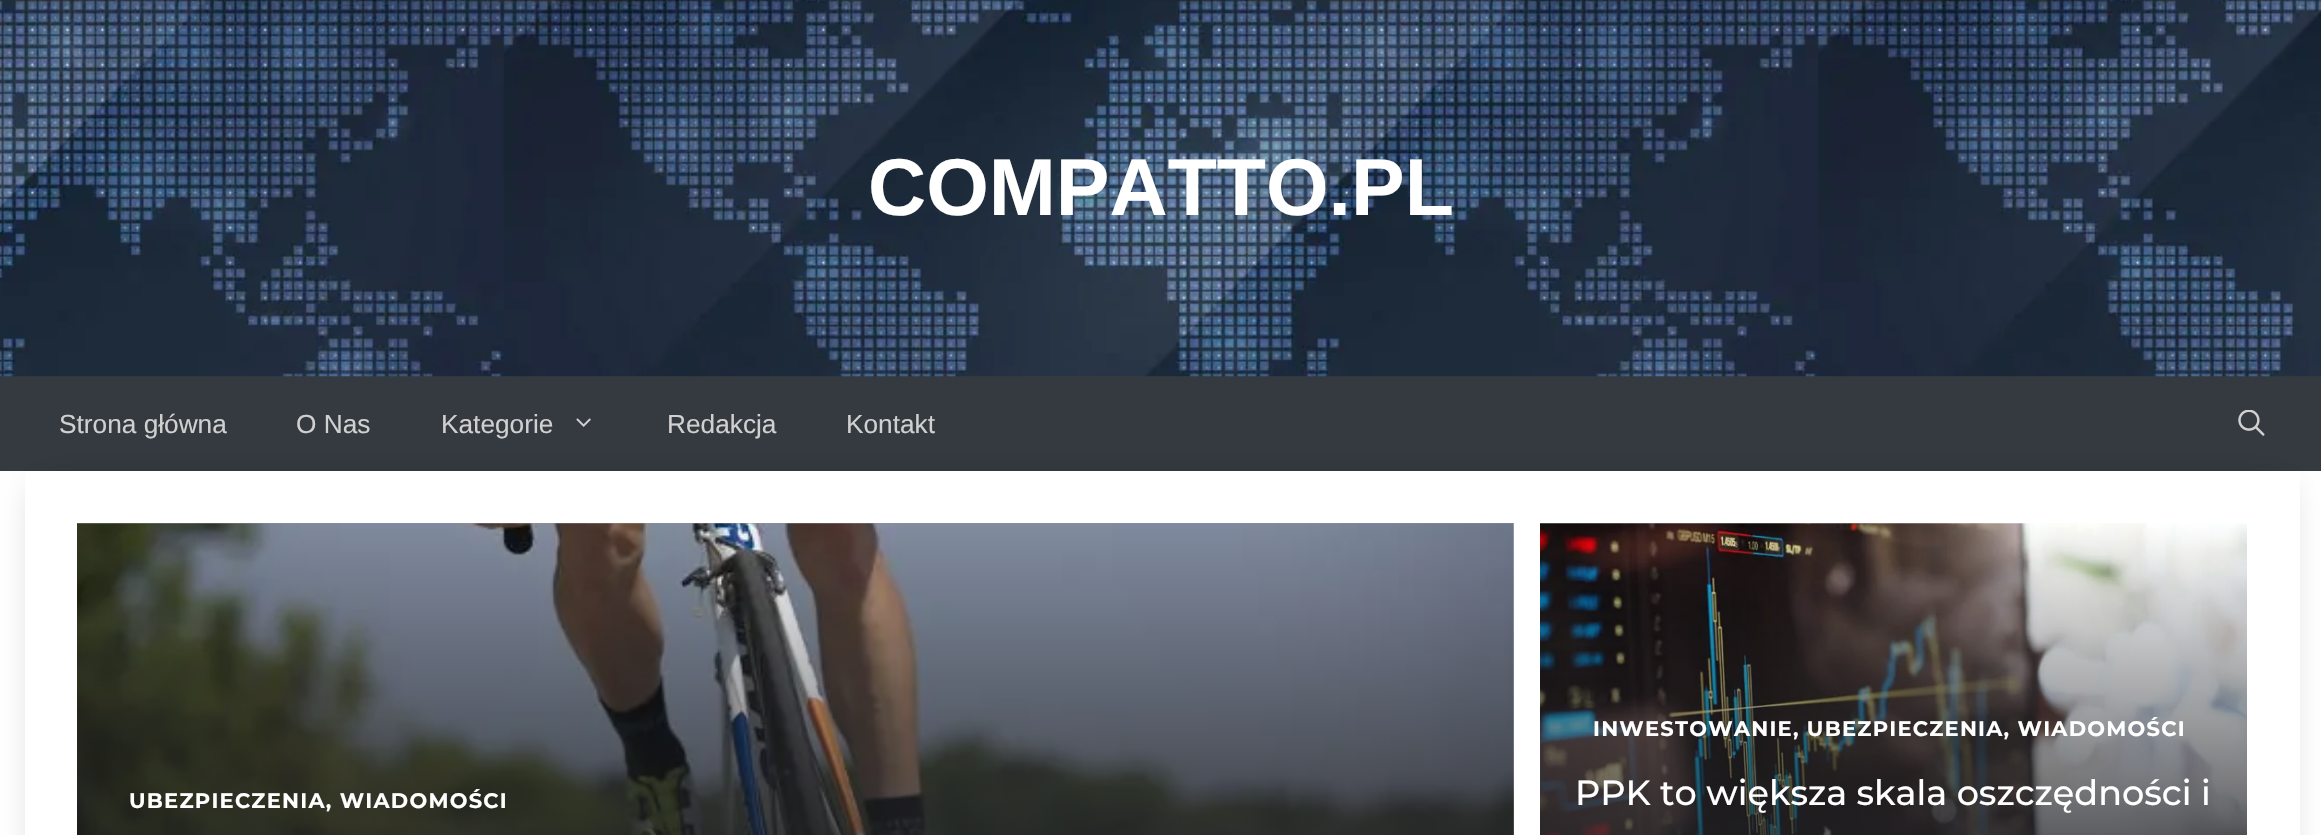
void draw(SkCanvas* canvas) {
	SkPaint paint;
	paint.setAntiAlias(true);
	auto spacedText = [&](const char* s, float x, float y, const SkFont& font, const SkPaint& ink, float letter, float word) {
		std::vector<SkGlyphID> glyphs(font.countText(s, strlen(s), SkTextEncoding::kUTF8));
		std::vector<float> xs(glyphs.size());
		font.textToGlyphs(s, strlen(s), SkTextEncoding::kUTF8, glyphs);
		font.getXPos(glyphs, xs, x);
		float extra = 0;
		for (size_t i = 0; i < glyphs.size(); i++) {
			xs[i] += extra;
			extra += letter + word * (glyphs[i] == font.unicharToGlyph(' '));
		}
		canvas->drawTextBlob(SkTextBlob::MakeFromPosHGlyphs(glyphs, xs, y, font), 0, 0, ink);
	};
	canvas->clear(0xffffffff);
	paint.setColor(0xff343a40);
	canvas->drawRect(SkRect::MakeXYWH(0, 376, 2321, 95), paint);
	canvas->drawImageRect(SkImages::DeferredFromEncodedData(SkData::MakeFromFileName("img1.png")), SkRect::MakeXYWH(0, 0, 2321, 377), SkSamplingOptions());
	SkFont f1(fontMgr->matchFamilyStyle("Liberation Sans", SkFontStyle::Bold()), 80.5);
	f1.setSubpixel(true);
	paint.setColor(0xffffffff);
	canvas->drawString("COMPATTO.PL", 868, 215, f1, paint);
	paint.setColor(0x4d000000);
	paint.setMaskFilter(SkMaskFilter::MakeBlur(kNormal_SkBlurStyle, 17.5));
	canvas->drawRect(SkRect::MakeXYWH(42, 488, 2240, 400), paint);
	paint.setMaskFilter(nullptr);
	SkFont f2(fontMgr->matchFamilyStyle("Liberation Sans", SkFontStyle::Normal()), 26.25);
	f2.setSubpixel(true);
	paint.setColor(0xffd0d0d0);
	canvas->drawString("Strona główna", 59, 433, f2, paint);
	canvas->drawString("O Nas", 296, 433, f2, paint);
	canvas->drawString("Kategorie", 441, 433, f2, paint);
	canvas->drawImageRect(SkImages::DeferredFromEncodedData(SkData::MakeFromFileName("img2.png")), SkRect::MakeXYWH(576, 418, 15, 9), SkSamplingOptions());
	canvas->drawString("Redakcja", 667, 433, f2, paint);
	canvas->drawString("Kontakt", 846, 433, f2, paint);
	canvas->drawImageRect(SkImages::DeferredFromEncodedData(SkData::MakeFromFileName("img3.png")), SkRect::MakeXYWH(2238, 410, 27, 26), SkSamplingOptions());
	paint.setColor(0xffffffff);
	canvas->drawRect(SkRect::MakeXYWH(25, 471, 2275, 364), paint);
	canvas->drawImageRect(SkImages::DeferredFromEncodedData(SkData::MakeFromFileName("img4.png")), SkRect::MakeXYWH(77, 523, 1437, 312), SkSamplingOptions());
	SkFont f3(fontMgr->matchFamilyStyle("Montserrat", SkFontStyle::Bold()), 21);
	f3.setSubpixel(true);
	spacedText("UBEZPIECZENIA, WIADOMOŚCI", 129, 808, f3, paint, 1.25, 0);
	canvas->drawImageRect(SkImages::DeferredFromEncodedData(SkData::MakeFromFileName("img5.png")), SkRect::MakeXYWH(1540, 523, 707, 312), SkSamplingOptions());
	spacedText("INWESTOWANIE, UBEZPIECZENIA, WIADOMOŚCI", 1593, 736, f3, paint, 1.25, 0);
	SkFont f4(fontMgr->matchFamilyStyle("Montserrat", SkFontStyle(500, SkFontStyle::kNormal_Width, SkFontStyle::kUpright_Slant)), 35);
	f4.setSubpixel(true);
	canvas->drawString("PPK to większa skala oszczędności i", 1575, 805, f4, paint);
}
